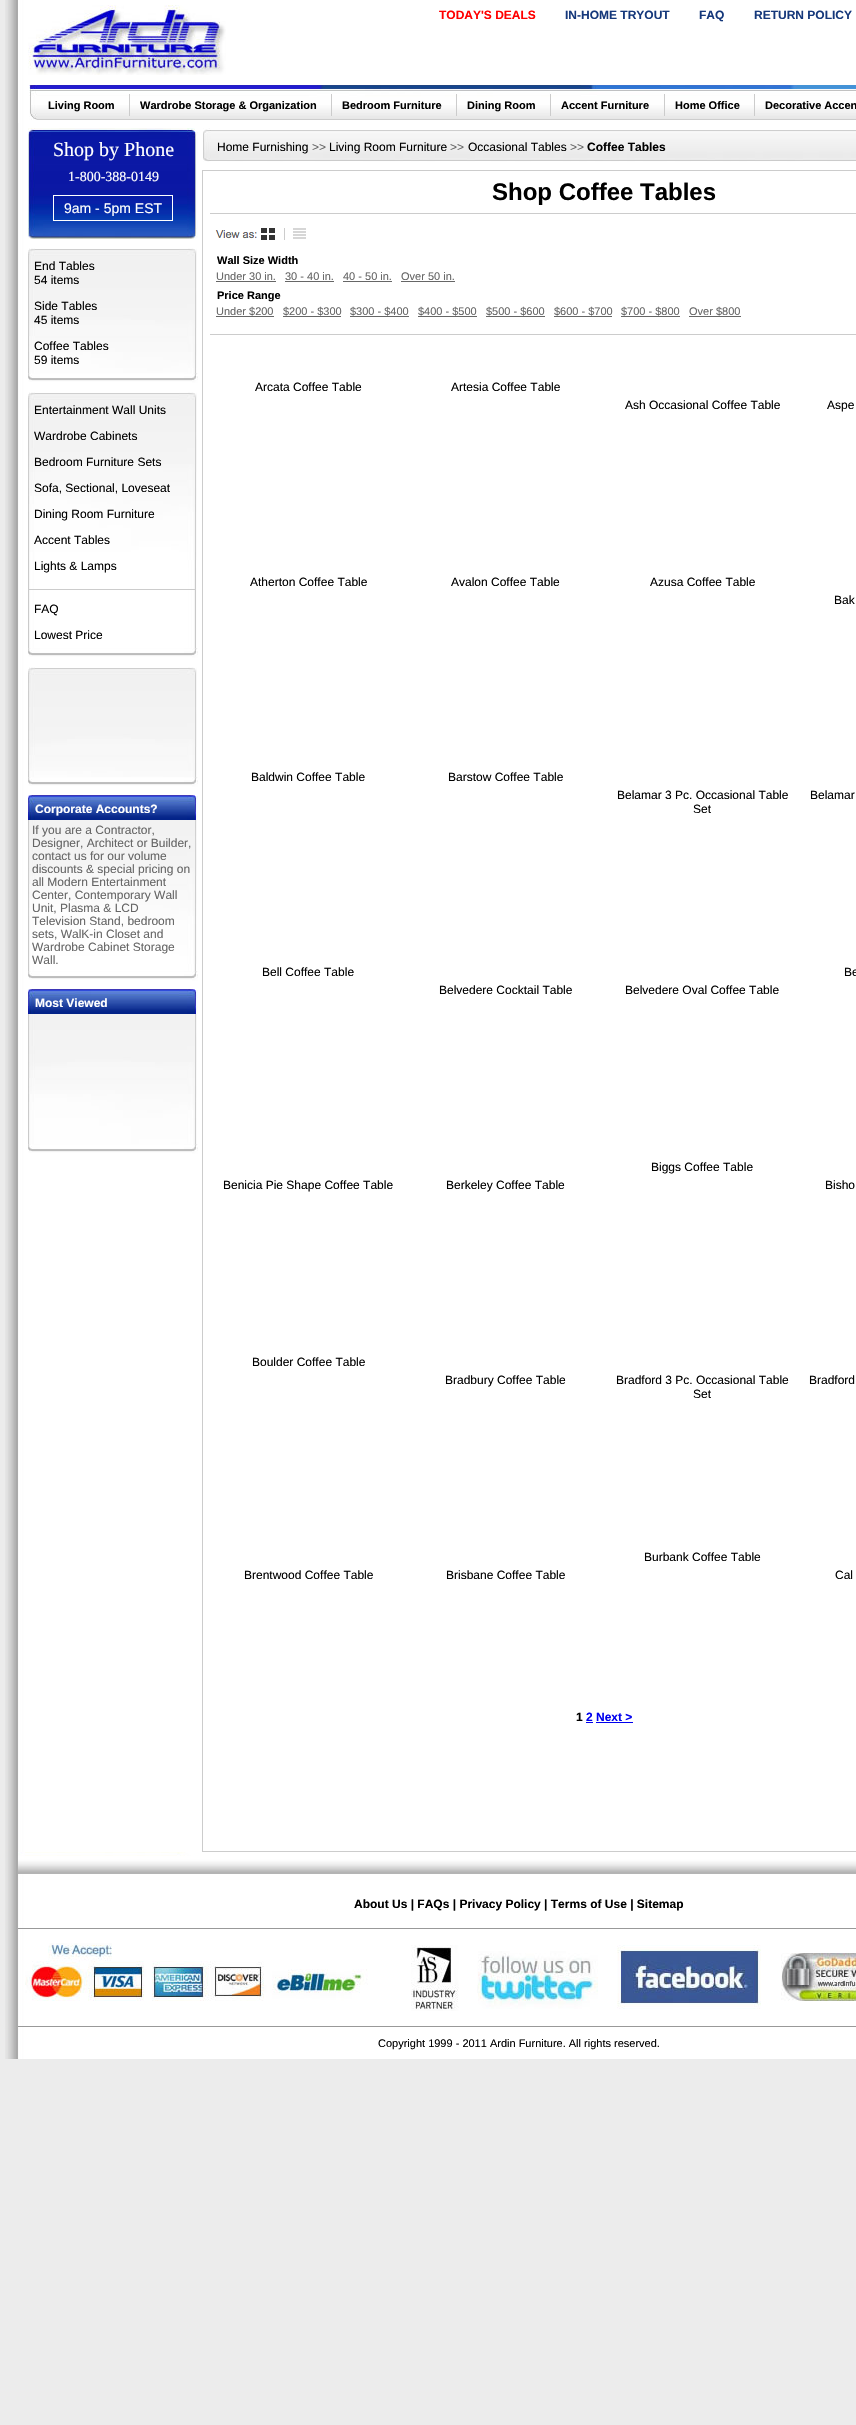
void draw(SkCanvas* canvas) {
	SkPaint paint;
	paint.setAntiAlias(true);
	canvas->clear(0xffececec);
	canvas->drawImageRect(SkImages::DeferredFromEncodedData(SkData::MakeFromFileName("img1.png")), SkRect::MakeXYWH(5, 0, 851, 2059), SkSamplingOptions());
	paint.setColor(0xffffffff);
	canvas->drawRect(SkRect::MakeXYWH(18, 0, 1, 123), paint);
	canvas->drawImageRect(SkImages::DeferredFromEncodedData(SkData::MakeFromFileName("img2.png")), SkRect::MakeXYWH(28, 5, 198, 70), SkSamplingOptions());
	SkFont f1(fontMgr->matchFamilyStyle("Liberation Sans", SkFontStyle::Bold()), 12);
	f1.setSubpixel(true);
	paint.setColor(0xffff0000);
	canvas->drawString("TODAY'S DEALS", 439, 19, f1, paint);
	paint.setColor(0xff15387b);
	canvas->drawString("IN-HOME TRYOUT", 565, 19, f1, paint);
	canvas->drawString("FAQ", 699, 19, f1, paint);
	canvas->drawString("RETURN POLICY", 754, 19, f1, paint);
	canvas->drawImageRect(SkImages::DeferredFromEncodedData(SkData::MakeFromFileName("img3.png")), SkRect::MakeXYWH(29, 85, 827, 35), SkSamplingOptions());
	SkFont f2(fontMgr->matchFamilyStyle("Liberation Sans", SkFontStyle::Bold()), 11);
	f2.setSubpixel(true);
	paint.setColor(0xff000000);
	canvas->drawString("Living Room", 48, 109, f2, paint);
	canvas->drawString("Wardrobe Storage & Organization", 140, 109, f2, paint);
	paint.setColor(0xffcccccc);
	canvas->drawRect(SkRect::MakeXYWH(129, 94, 1, 22), paint);
	paint.setColor(0xff000000);
	canvas->drawString("Bedroom Furniture", 342, 109, f2, paint);
	paint.setColor(0xffcccccc);
	canvas->drawRect(SkRect::MakeXYWH(331, 94, 1, 22), paint);
	paint.setColor(0xff000000);
	canvas->drawString("Dining Room", 467, 109, f2, paint);
	paint.setColor(0xffcccccc);
	canvas->drawRect(SkRect::MakeXYWH(456, 94, 1, 22), paint);
	paint.setColor(0xff000000);
	canvas->drawString("Accent Furniture", 561, 109, f2, paint);
	paint.setColor(0xffcccccc);
	canvas->drawRect(SkRect::MakeXYWH(550, 94, 1, 22), paint);
	paint.setColor(0xff000000);
	canvas->drawString("Home Office", 675, 109, f2, paint);
	paint.setColor(0xffcccccc);
	canvas->drawRect(SkRect::MakeXYWH(664, 94, 1, 22), paint);
	paint.setColor(0xff000000);
	canvas->drawString("Decorative Accen", 765, 109, f2, paint);
	paint.setColor(0xffcccccc);
	canvas->drawRect(SkRect::MakeXYWH(754, 94, 1, 22), paint);
	canvas->drawImageRect(SkImages::DeferredFromEncodedData(SkData::MakeFromFileName("img4.png")), SkRect::MakeXYWH(28, 128, 170, 111), SkSamplingOptions());
	SkFont f3(fontMgr->matchFamilyStyle("Liberation Serif", SkFontStyle::Normal()), 20);
	f3.setSubpixel(true);
	paint.setColor(0xffffffff);
	canvas->drawString("Shop by Phone", 53, 156, f3, paint);
	SkFont f4(fontMgr->matchFamilyStyle("Liberation Serif", SkFontStyle::Normal()), 14);
	f4.setSubpixel(true);
	canvas->drawString("1-800-388-0149", 68, 181, f4, paint);
	paint.setStroke(true);
	paint.setStrokeWidth(1);
	canvas->drawRect(SkRect::MakeXYWH(53.5, 195.5, 119, 25), paint);
	SkFont f5(fontMgr->matchFamilyStyle("Liberation Sans", SkFontStyle::Normal()), 14);
	f5.setSubpixel(true);
	paint.setStroke(false);
	canvas->drawString("9am - 5pm EST", 64, 213, f5, paint);
	canvas->drawImageRect(SkImages::DeferredFromEncodedData(SkData::MakeFromFileName("img5.png")), SkRect::MakeXYWH(28, 248, 169, 125), SkSamplingOptions());
	SkFont f6(fontMgr->matchFamilyStyle("Liberation Sans", SkFontStyle::Normal()), 12);
	f6.setSubpixel(true);
	paint.setColor(0xff000000);
	canvas->drawString("End Tables", 34, 270, f6, paint);
	canvas->drawString("54 items", 34, 284, f6, paint);
	canvas->drawString("Side Tables", 34, 310, f6, paint);
	canvas->drawString("45 items", 34, 324, f6, paint);
	canvas->drawString("Coffee Tables", 34, 350, f6, paint);
	canvas->drawString("59 items", 34, 364, f6, paint);
	canvas->drawImageRect(SkImages::DeferredFromEncodedData(SkData::MakeFromFileName("img6.png")), SkRect::MakeXYWH(28, 373, 170, 10), SkSamplingOptions());
	canvas->drawImageRect(SkImages::DeferredFromEncodedData(SkData::MakeFromFileName("img7.png")), SkRect::MakeXYWH(28, 392, 169, 256), SkSamplingOptions());
	canvas->drawString("Entertainment Wall Units", 34, 414, f6, paint);
	canvas->drawString("Wardrobe Cabinets", 34, 440, f6, paint);
	canvas->drawString("Bedroom Furniture Sets", 34, 466, f6, paint);
	canvas->drawString("Sofa, Sectional, Loveseat", 34, 492, f6, paint);
	canvas->drawString("Dining Room Furniture", 34, 518, f6, paint);
	canvas->drawString("Accent Tables", 34, 544, f6, paint);
	canvas->drawString("Lights & Lamps", 34, 570, f6, paint);
	paint.setColor(0xffcccccc);
	canvas->drawRect(SkRect::MakeXYWH(28, 589, 168, 1), paint);
	paint.setColor(0xff000000);
	canvas->drawString("FAQ", 34, 613, f6, paint);
	canvas->drawString("Lowest Price", 34, 639, f6, paint);
	canvas->drawImageRect(SkImages::DeferredFromEncodedData(SkData::MakeFromFileName("img6.png")), SkRect::MakeXYWH(28, 648, 170, 10), SkSamplingOptions());
	canvas->drawImageRect(SkImages::DeferredFromEncodedData(SkData::MakeFromFileName("img8.png")), SkRect::MakeXYWH(28, 667, 169, 110), SkSamplingOptions());
	canvas->drawImageRect(SkImages::DeferredFromEncodedData(SkData::MakeFromFileName("img6.png")), SkRect::MakeXYWH(28, 777, 170, 10), SkSamplingOptions());
	canvas->drawImageRect(SkImages::DeferredFromEncodedData(SkData::MakeFromFileName("img9.png")), SkRect::MakeXYWH(28, 820, 169, 151), SkSamplingOptions());
	canvas->drawImageRect(SkImages::DeferredFromEncodedData(SkData::MakeFromFileName("img10.png")), SkRect::MakeXYWH(28, 795, 170, 25), SkSamplingOptions());
	paint.setColor(0xffffffff);
	canvas->drawString("Corporate Accounts?", 35, 813, f1, paint);
	paint.setColor(0xff666666);
	canvas->drawString("If you are a Contractor,", 32, 834, f6, paint);
	canvas->drawString("Designer, Architect or Builder,", 32, 847, f6, paint);
	canvas->drawString("contact us for our volume", 32, 860, f6, paint);
	canvas->drawString("discounts & special pricing on", 32, 873, f6, paint);
	canvas->drawString("all Modern Entertainment", 32, 886, f6, paint);
	canvas->drawString("Center, Contemporary Wall", 32, 899, f6, paint);
	canvas->drawString("Unit, Plasma & LCD", 32, 912, f6, paint);
	canvas->drawString("Television Stand, bedroom", 32, 925, f6, paint);
	canvas->drawString("sets, WalK-in Closet and", 32, 938, f6, paint);
	canvas->drawString("Wardrobe Cabinet Storage", 32, 951, f6, paint);
	canvas->drawString("Wall.", 32, 964, f6, paint);
	canvas->drawImageRect(SkImages::DeferredFromEncodedData(SkData::MakeFromFileName("img6.png")), SkRect::MakeXYWH(28, 971, 170, 10), SkSamplingOptions());
	canvas->drawImageRect(SkImages::DeferredFromEncodedData(SkData::MakeFromFileName("img11.png")), SkRect::MakeXYWH(28, 1014, 169, 130), SkSamplingOptions());
	canvas->drawImageRect(SkImages::DeferredFromEncodedData(SkData::MakeFromFileName("img10.png")), SkRect::MakeXYWH(28, 989, 170, 25), SkSamplingOptions());
	paint.setColor(0xffffffff);
	canvas->drawString("Most Viewed", 35, 1007, f1, paint);
	canvas->drawImageRect(SkImages::DeferredFromEncodedData(SkData::MakeFromFileName("img6.png")), SkRect::MakeXYWH(28, 1144, 170, 10), SkSamplingOptions());
	canvas->drawImageRect(SkImages::DeferredFromEncodedData(SkData::MakeFromFileName("img12.png")), SkRect::MakeXYWH(203, 128, 653, 34), SkSamplingOptions());
	paint.setColor(0xff000000);
	canvas->drawString("Home Furnishing", 217, 151, f6, paint);
	paint.setColor(0xff666666);
	canvas->drawString(">>", 312, 151, f6, paint);
	paint.setColor(0xff000000);
	canvas->drawString("Living Room Furniture", 329, 151, f6, paint);
	paint.setColor(0xff666666);
	canvas->drawString(">>", 450, 151, f6, paint);
	paint.setColor(0xff000000);
	canvas->drawString("Occasional Tables", 468, 151, f6, paint);
	paint.setColor(0xff666666);
	canvas->drawString(">>", 570, 151, f6, paint);
	paint.setColor(0xff000000);
	canvas->drawString("Coffee Tables", 587, 151, f1, paint);
	paint.setStroke(true);
	paint.setColor(0xffcccccc);
	canvas->drawRect(SkRect::MakeXYWH(202.5, 170.5, 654, 1681), paint);
	SkFont f7(fontMgr->matchFamilyStyle("Liberation Sans", SkFontStyle::Bold()), 24);
	f7.setSubpixel(true);
	paint.setStroke(false);
	paint.setColor(0xff000000);
	canvas->drawString("Shop Coffee Tables", 492, 200, f7, paint);
	paint.setColor(0xffcccccc);
	canvas->drawRect(SkRect::MakeXYWH(210, 213, 646, 1), paint);
	canvas->drawRect(SkRect::MakeXYWH(210, 334, 646, 1), paint);
	canvas->drawImageRect(SkImages::DeferredFromEncodedData(SkData::MakeFromFileName("img13.png")), SkRect::MakeXYWH(215, 228, 91, 12), SkSamplingOptions());
	paint.setColor(0xff000000);
	canvas->drawString("Wall Size Width", 217, 264, f2, paint);
	SkFont f8(fontMgr->matchFamilyStyle("Liberation Sans", SkFontStyle::Normal()), 11);
	f8.setSubpixel(true);
	paint.setColor(0xff666666);
	canvas->drawString("Under 30 in.", 216, 280, f8, paint);
	canvas->drawRect(SkRect::MakeXYWH(216, 281, 60, 1), paint);
	canvas->drawString("30 - 40 in.", 285, 280, f8, paint);
	canvas->drawRect(SkRect::MakeXYWH(285, 281, 49, 1), paint);
	canvas->drawString("40 - 50 in.", 343, 280, f8, paint);
	canvas->drawRect(SkRect::MakeXYWH(343, 281, 49, 1), paint);
	canvas->drawString("Over 50 in.", 401, 280, f8, paint);
	canvas->drawRect(SkRect::MakeXYWH(401, 281, 54, 1), paint);
	paint.setColor(0xff000000);
	canvas->drawString("Price Range", 217, 299, f2, paint);
	paint.setColor(0xff666666);
	canvas->drawString("Under $200", 216, 315, f8, paint);
	canvas->drawRect(SkRect::MakeXYWH(216, 316, 58, 1), paint);
	canvas->drawString("$200 - $300", 283, 315, f8, paint);
	canvas->drawRect(SkRect::MakeXYWH(283, 316, 58, 1), paint);
	canvas->drawString("$300 - $400", 350, 315, f8, paint);
	canvas->drawRect(SkRect::MakeXYWH(350, 316, 59, 1), paint);
	canvas->drawString("$400 - $500", 418, 315, f8, paint);
	canvas->drawRect(SkRect::MakeXYWH(418, 316, 59, 1), paint);
	canvas->drawString("$500 - $600", 486, 315, f8, paint);
	canvas->drawRect(SkRect::MakeXYWH(486, 316, 59, 1), paint);
	canvas->drawString("$600 - $700", 554, 315, f8, paint);
	canvas->drawRect(SkRect::MakeXYWH(554, 316, 58, 1), paint);
	canvas->drawString("$700 - $800", 621, 315, f8, paint);
	canvas->drawRect(SkRect::MakeXYWH(621, 316, 59, 1), paint);
	canvas->drawString("Over $800", 689, 315, f8, paint);
	canvas->drawRect(SkRect::MakeXYWH(689, 316, 52, 1), paint);
	paint.setColor(0xff000000);
	canvas->drawString("Arcata Coffee Table", 255, 391, f6, paint);
	canvas->drawString("Artesia Coffee Table", 451, 391, f6, paint);
	canvas->drawString("Ash Occasional Coffee Table", 625, 409, f6, paint);
	canvas->drawString("Aspe", 827, 409, f6, paint);
	canvas->drawString("Atherton Coffee Table", 250, 586, f6, paint);
	canvas->drawString("Avalon Coffee Table", 451, 586, f6, paint);
	canvas->drawString("Azusa Coffee Table", 650, 586, f6, paint);
	canvas->drawString("Bak", 834, 604, f6, paint);
	canvas->drawString("Baldwin Coffee Table", 251, 781, f6, paint);
	canvas->drawString("Barstow Coffee Table", 448, 781, f6, paint);
	canvas->drawString("Belamar 3 Pc. Occasional Table", 617, 799, f6, paint);
	canvas->drawString("Set", 693, 813, f6, paint);
	canvas->drawString("Belamar", 810, 799, f6, paint);
	canvas->drawString("Bell Coffee Table", 262, 976, f6, paint);
	canvas->drawString("Be", 844, 976, f6, paint);
	canvas->drawString("Belvedere Cocktail Table", 439, 994, f6, paint);
	canvas->drawString("Belvedere Oval Coffee Table", 625, 994, f6, paint);
	canvas->drawString("Biggs Coffee Table", 651, 1171, f6, paint);
	canvas->drawString("Benicia Pie Shape Coffee Table", 223, 1189, f6, paint);
	canvas->drawString("Berkeley Coffee Table", 446, 1189, f6, paint);
	canvas->drawString("Bisho", 825, 1189, f6, paint);
	canvas->drawString("Boulder Coffee Table", 252, 1366, f6, paint);
	canvas->drawString("Bradbury Coffee Table", 445, 1384, f6, paint);
	canvas->drawString("Bradford 3 Pc. Occasional Table", 616, 1384, f6, paint);
	canvas->drawString("Set", 693, 1398, f6, paint);
	canvas->drawString("Bradford", 809, 1384, f6, paint);
	canvas->drawString("Burbank Coffee Table", 644, 1561, f6, paint);
	canvas->drawString("Brentwood Coffee Table", 244, 1579, f6, paint);
	canvas->drawString("Brisbane Coffee Table", 446, 1579, f6, paint);
	canvas->drawString("Cal", 835, 1579, f6, paint);
	canvas->drawString("1", 576, 1721, f1, paint);
	paint.setColor(0xff0000ee);
	canvas->drawString("2 Next >", 586, 1721, f1, paint);
	canvas->drawRect(SkRect::MakeXYWH(586, 1722, 7, 1), paint);
	canvas->drawRect(SkRect::MakeXYWH(596, 1722, 37, 1), paint);
	canvas->drawImageRect(SkImages::DeferredFromEncodedData(SkData::MakeFromFileName("img14.png")), SkRect::MakeXYWH(18, 1852, 838, 22), SkSamplingOptions());
	paint.setColor(0xff000000);
	canvas->drawString("About Us | FAQs | Privacy Policy | Terms of Use | Sitemap", 354, 1908, f1, paint);
	paint.setColor(0xff999999);
	canvas->drawRect(SkRect::MakeXYWH(18, 1928, 838, 1), paint);
	canvas->drawRect(SkRect::MakeXYWH(18, 2026, 838, 1), paint);
	canvas->drawImageRect(SkImages::DeferredFromEncodedData(SkData::MakeFromFileName("img15.png")), SkRect::MakeXYWH(25, 1943, 343, 58), SkSamplingOptions());
	canvas->drawImageRect(SkImages::DeferredFromEncodedData(SkData::MakeFromFileName("img16.png")), SkRect::MakeXYWH(411, 1945, 48, 66), SkSamplingOptions());
	canvas->drawImageRect(SkImages::DeferredFromEncodedData(SkData::MakeFromFileName("img17.png")), SkRect::MakeXYWH(477, 1951, 121, 58), SkSamplingOptions());
	canvas->drawImageRect(SkImages::DeferredFromEncodedData(SkData::MakeFromFileName("img18.png")), SkRect::MakeXYWH(617, 1945, 144, 64), SkSamplingOptions());
	canvas->drawImageRect(SkImages::DeferredFromEncodedData(SkData::MakeFromFileName("img19.png")), SkRect::MakeXYWH(781, 1953, 75, 48), SkSamplingOptions());
	paint.setColor(0xff000000);
	canvas->drawString("Copyright 1999 - 2011 Ardin Furniture. All rights reserved.", 378, 2047, f8, paint);
}
